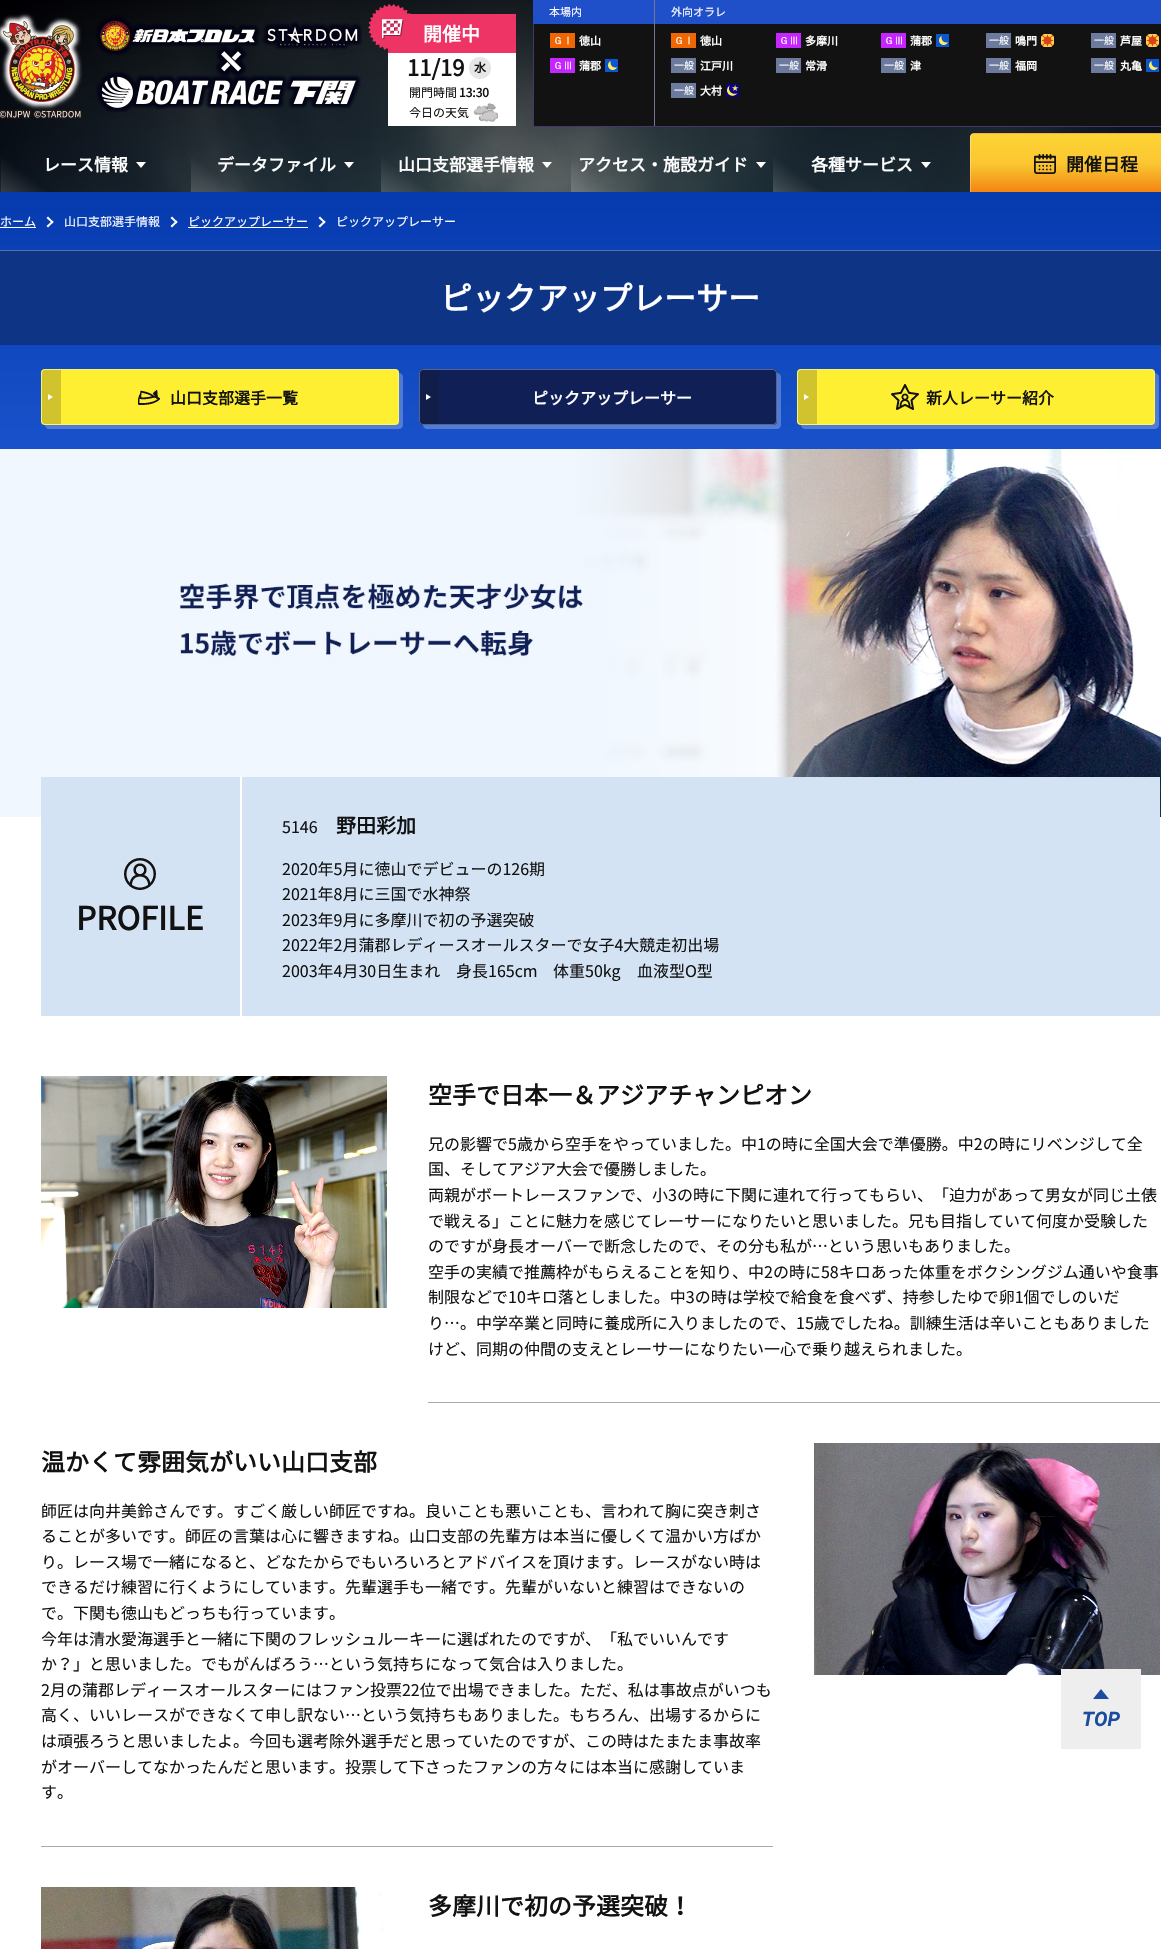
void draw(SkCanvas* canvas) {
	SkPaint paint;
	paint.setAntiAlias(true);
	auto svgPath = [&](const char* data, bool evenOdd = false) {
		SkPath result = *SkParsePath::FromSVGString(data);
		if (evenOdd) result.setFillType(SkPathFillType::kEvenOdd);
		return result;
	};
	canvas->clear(0xffffffff);
	canvas->drawImageRect(SkImages::DeferredFromEncodedData(SkData::MakeFromFileName("img1.png")), SkRect::MakeXYWH(0, 0, 1161, 192), SkSamplingOptions());
	paint.setColor(0xffed3465);
	canvas->drawRect(SkRect::MakeXYWH(388, 14, 128, 39), paint);
	canvas->drawImageRect(SkImages::DeferredFromEncodedData(SkData::MakeFromFileName("img2.png")), SkRect::MakeXYWH(368, 4, 43, 46), SkSamplingOptions());
	SkFont f1(fontMgr->matchFamilyStyle("Noto Sans CJK JP", SkFontStyle::Bold()), 19);
	f1.setSubpixel(true);
	paint.setColor(0xffffffff);
	canvas->drawString("開催中", 423, 41, f1, paint);
	canvas->drawRect(SkRect::MakeXYWH(388, 53, 128, 73), paint);
	SkFont f2(fontMgr->matchFamilyStyle("Noto Sans CJK JP", SkFontStyle::Bold()), 22);
	f2.setSubpixel(true);
	paint.setColor(0xff121212);
	canvas->drawString("11/19", 407, 76, f2, paint);
	paint.setColor(0xffe6e6e6);
	canvas->drawCircle(480, 68, 11, paint);
	SkFont f3(fontMgr->matchFamilyStyle("Noto Sans CJK JP", SkFontStyle::Bold()), 12);
	f3.setSubpixel(true);
	paint.setColor(0xff121212);
	canvas->drawString("水", 474, 72, f3, paint);
	SkFont f4(fontMgr->matchFamilyStyle("Noto Sans CJK JP", SkFontStyle::Normal()), 12);
	f4.setSubpixel(true);
	canvas->drawString("開門時間", 409, 97, f4, paint);
	canvas->drawString("13:30", 459, 97, f3, paint);
	canvas->drawString("今日の天気", 409, 117, f4, paint);
	canvas->drawImageRect(SkImages::DeferredFromEncodedData(SkData::MakeFromFileName("img3.png")), SkRect::MakeXYWH(473, 103, 25, 19), SkSamplingOptions());
	canvas->drawRect(SkRect::MakeXYWH(534, 24, 627, 102), paint);
	paint.setColor(0xff2050c9);
	canvas->drawRect(SkRect::MakeXYWH(533, 0, 628, 24), paint);
	SkFont f5(fontMgr->matchFamilyStyle("Noto Sans CJK JP", SkFontStyle::Normal()), 11);
	f5.setSubpixel(true);
	paint.setColor(0xffffffff);
	canvas->drawString("本場内", 549, 16, f5, paint);
	paint.setColor(0xff797595);
	canvas->drawRect(SkRect::MakeXYWH(654, 0, 1, 126), paint);
	paint.setColor(0xffffffff);
	canvas->drawString("外向オラレ", 671, 16, f5, paint);
	paint.setColor(0xff403a68);
	canvas->drawRect(SkRect::MakeXYWH(533, 126, 628, 1), paint);
	canvas->drawRect(SkRect::MakeXYWH(533, 24, 1, 103), paint);
	paint.setColor(0xffef6602);
	canvas->drawRect(SkRect::MakeXYWH(550, 33, 25, 15), paint);
	SkFont f6(fontMgr->matchFamilyStyle("WenQuanYi Zen Hei", SkFontStyle(500, SkFontStyle::kNormal_Width, SkFontStyle::kUpright_Slant)), 10);
	f6.setSubpixel(true);
	paint.setColor(0xffffffff);
	canvas->drawString("ＧⅠ", 553, 44, f6, paint);
	SkFont f7(fontMgr->matchFamilyStyle("Noto Sans CJK JP", SkFontStyle::Bold()), 11);
	f7.setSubpixel(true);
	canvas->drawString("徳山", 579, 45, f7, paint);
	paint.setColor(0xffc526ff);
	canvas->drawRect(SkRect::MakeXYWH(550, 58, 25, 15), paint);
	paint.setColor(0xffffffff);
	canvas->drawString("ＧⅢ", 553, 69, f6, paint);
	canvas->drawString("蒲郡", 579, 70, f7, paint);
	canvas->drawImageRect(SkImages::DeferredFromEncodedData(SkData::MakeFromFileName("img4.png")), SkRect::MakeXYWH(605, 59, 13, 13), SkSamplingOptions());
	paint.setColor(0xffef6602);
	canvas->drawRect(SkRect::MakeXYWH(671, 33, 25, 15), paint);
	paint.setColor(0xffffffff);
	canvas->drawString("ＧⅠ", 674, 44, f6, paint);
	canvas->drawString("徳山", 700, 45, f7, paint);
	paint.setColor(0xffc526ff);
	canvas->drawRect(SkRect::MakeXYWH(776, 33, 25, 15), paint);
	paint.setColor(0xffffffff);
	canvas->drawString("ＧⅢ", 779, 44, f6, paint);
	canvas->drawString("多摩川", 805, 45, f7, paint);
	paint.setColor(0xffc526ff);
	canvas->drawRect(SkRect::MakeXYWH(881, 33, 25, 15), paint);
	paint.setColor(0xffffffff);
	canvas->drawString("ＧⅢ", 884, 44, f6, paint);
	canvas->drawString("蒲郡", 910, 45, f7, paint);
	canvas->drawImageRect(SkImages::DeferredFromEncodedData(SkData::MakeFromFileName("img4.png")), SkRect::MakeXYWH(936, 34, 13, 13), SkSamplingOptions());
	paint.setColor(0xff6c7a9d);
	canvas->drawRect(SkRect::MakeXYWH(986, 33, 25, 15), paint);
	SkFont f8(fontMgr->matchFamilyStyle("Noto Sans CJK JP", SkFontStyle::Normal()), 10);
	f8.setSubpixel(true);
	paint.setColor(0xffffffff);
	canvas->drawString("一般", 989, 44, f8, paint);
	canvas->drawString("鳴門", 1015, 45, f7, paint);
	canvas->drawImageRect(SkImages::DeferredFromEncodedData(SkData::MakeFromFileName("img5.png")), SkRect::MakeXYWH(1041, 34, 13, 13), SkSamplingOptions());
	paint.setColor(0xff6c7a9d);
	canvas->drawRect(SkRect::MakeXYWH(1091, 33, 25, 15), paint);
	paint.setColor(0xffffffff);
	canvas->drawString("一般", 1094, 44, f8, paint);
	canvas->drawString("芦屋", 1120, 45, f7, paint);
	canvas->drawImageRect(SkImages::DeferredFromEncodedData(SkData::MakeFromFileName("img5.png")), SkRect::MakeXYWH(1146, 34, 13, 13), SkSamplingOptions());
	paint.setColor(0xff6c7a9d);
	canvas->drawRect(SkRect::MakeXYWH(671, 58, 25, 15), paint);
	paint.setColor(0xffffffff);
	canvas->drawString("一般", 674, 69, f8, paint);
	canvas->drawString("江戸川", 700, 70, f7, paint);
	paint.setColor(0xff6c7a9d);
	canvas->drawRect(SkRect::MakeXYWH(776, 58, 25, 15), paint);
	paint.setColor(0xffffffff);
	canvas->drawString("一般", 779, 69, f8, paint);
	canvas->drawString("常滑", 805, 70, f7, paint);
	paint.setColor(0xff6c7a9d);
	canvas->drawRect(SkRect::MakeXYWH(881, 58, 25, 15), paint);
	paint.setColor(0xffffffff);
	canvas->drawString("一般", 884, 69, f8, paint);
	canvas->drawString("津", 910, 70, f7, paint);
	paint.setColor(0xff6c7a9d);
	canvas->drawRect(SkRect::MakeXYWH(986, 58, 25, 15), paint);
	paint.setColor(0xffffffff);
	canvas->drawString("一般", 989, 69, f8, paint);
	canvas->drawString("福岡", 1015, 70, f7, paint);
	paint.setColor(0xff6c7a9d);
	canvas->drawRect(SkRect::MakeXYWH(1091, 58, 25, 15), paint);
	paint.setColor(0xffffffff);
	canvas->drawString("一般", 1094, 69, f8, paint);
	canvas->drawString("丸亀", 1120, 70, f7, paint);
	canvas->drawImageRect(SkImages::DeferredFromEncodedData(SkData::MakeFromFileName("img4.png")), SkRect::MakeXYWH(1146, 59, 13, 13), SkSamplingOptions());
	paint.setColor(0xff6c7a9d);
	canvas->drawRect(SkRect::MakeXYWH(671, 83, 25, 15), paint);
	paint.setColor(0xffffffff);
	canvas->drawString("一般", 674, 94, f8, paint);
	canvas->drawString("大村", 700, 95, f7, paint);
	canvas->drawImageRect(SkImages::DeferredFromEncodedData(SkData::MakeFromFileName("img6.png")), SkRect::MakeXYWH(726, 84, 13, 13), SkSamplingOptions());
	SkFont f9(fontMgr->matchFamilyStyle("Noto Sans CJK JP", SkFontStyle::Bold()), 17);
	f9.setSubpixel(true);
	canvas->drawString("レース情報", 43, 171, f9, paint);
	canvas->drawPath(svgPath("M136 162H146L141 168Z"), paint);
	canvas->drawString("データファイル", 217, 171, f9, paint);
	canvas->drawPath(svgPath("M344 162H354L349 168Z"), paint);
	canvas->drawString("山口支部選手情報", 398, 171, f9, paint);
	canvas->drawPath(svgPath("M542 162H552L547 168Z"), paint);
	canvas->drawString("アクセス・施設ガイド", 578, 171, f9, paint);
	canvas->drawPath(svgPath("M756 162H766L761 168Z"), paint);
	canvas->drawString("各種サービス", 811, 171, f9, paint);
	canvas->drawPath(svgPath("M921 162H931L926 168Z"), paint);
	canvas->save();
	canvas->clipPath(svgPath("M974 133H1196C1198 133 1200 135 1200 137V192H970V137C970 135 972 133 974 133Z"), true);
	{
		const SkColor colors[] = {0xfffcd533, 0xfffcc633, 0xfff8c12d, 0xfff48414};
		const float stops[] = {0, 0.49, 0.56, 1};
		const SkPoint ends[] = {{1085, 76}, {1085, 134}};
		paint.setShader(SkGradientShader::MakeLinear(ends, colors, stops, 4, SkTileMode::kClamp));
		paint.setAlpha(255);
	}
	canvas->drawRect(SkRect::MakeXYWH(970, 133, 191, 1), paint);
	{
		const SkColor colors[] = {0xfffcd533, 0xfffcc633, 0xfff8c12d, 0xfff48414};
		const float stops[] = {0, 0.49, 0.56, 1};
		const SkPoint ends[] = {{1085, 134}, {1085, 192}};
		paint.setShader(SkGradientShader::MakeLinear(ends, colors, stops, 4, SkTileMode::kClamp));
		paint.setAlpha(255);
	}
	canvas->drawRect(SkRect::MakeXYWH(970, 134, 191, 58), paint);
	canvas->restore();
	paint.setShader(nullptr);
	paint.setColor(0x4dffffff);
	canvas->drawPath(svgPath("M974 133H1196C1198 133 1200 135 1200 137V192H970V137C970 135 972 133 974 133ZM974 134H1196C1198 134 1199 135 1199 137V192H971V137C971 135 972 134 974 134Z", true), paint);
	canvas->drawImageRect(SkImages::DeferredFromEncodedData(SkData::MakeFromFileName("img7.png")), SkRect::MakeXYWH(1034, 154, 22, 20), SkSamplingOptions());
	SkFont f10(fontMgr->matchFamilyStyle("Noto Sans CJK JP", SkFontStyle::Bold()), 18);
	f10.setSubpixel(true);
	paint.setColor(0xff121212);
	canvas->drawString("開催日程", 1066, 171, f10, paint);
	{
		const SkColor colors[] = {0xff063aaf, 0xff3375f2};
		const float stops[] = {0, 1};
		const SkPoint ends[] = {{600, 192}, {600, 832}};
		paint.setShader(SkGradientShader::MakeLinear(ends, colors, stops, 2, SkTileMode::kClamp));
		paint.setAlpha(255);
	}
	canvas->drawRect(SkRect::MakeXYWH(0, 192, 1161, 257), paint);
	paint.setShader(nullptr);
	paint.setColor(0xffffffff);
	canvas->drawString("ホーム", 0, 226, f4, paint);
	canvas->drawRect(SkRect::MakeXYWH(0, 227, 36, 1), paint);
	canvas->drawPath(svgPath("M48 216.5L53.5 222L52.5 223.5L46.5 218Z"), paint);
	canvas->drawPath(svgPath("M52.5 220.5L53.5 222L48 227.5L46.5 226Z"), paint);
	canvas->drawString("山口支部選手情報", 64, 226, f4, paint);
	canvas->drawPath(svgPath("M172 216.5L177.5 222L176.5 223.5L170.5 218Z"), paint);
	canvas->drawPath(svgPath("M176.5 220.5L177.5 222L172 227.5L170.5 226Z"), paint);
	canvas->drawString("ピックアップレーサー", 188, 226, f4, paint);
	canvas->drawRect(SkRect::MakeXYWH(188, 227, 120, 1), paint);
	canvas->drawPath(svgPath("M320 216.5L325.5 222L324.5 223.5L318.5 218Z"), paint);
	canvas->drawPath(svgPath("M324.5 220.5L325.5 222L320 227.5L318.5 226Z"), paint);
	canvas->drawString("ピックアップレーサー", 336, 226, f4, paint);
	paint.setColor(0xff0e3486);
	canvas->drawRect(SkRect::MakeXYWH(0, 251, 1161, 94), paint);
	paint.setColor(0xff5671aa);
	canvas->drawRect(SkRect::MakeXYWH(0, 250, 1161, 1), paint);
	SkFont f11(fontMgr->matchFamilyStyle("Noto Sans CJK JP", SkFontStyle::Bold()), 32);
	f11.setSubpixel(true);
	paint.setColor(0xffffffff);
	canvas->drawString("ピックアップレーサー", 440, 310, f11, paint);
	paint.setColor(0x40ffffff);
	canvas->drawPath(svgPath("M45 425C45 427 47 429 49 429H399C401 429 403 427 403 425V377C403 375 401 373 399 373V421C399 423 397 425 395 425Z"), paint);
	paint.setColor(0xffffef33);
	canvas->drawRoundRect(SkRect::MakeXYWH(41, 369, 358, 56), 4, 4, paint);
	paint.setStroke(true);
	paint.setStrokeWidth(1);
	paint.setColor(0x4dffffff);
	canvas->drawRoundRect(SkRect::MakeXYWH(41.5, 369.5, 357, 55), 3.5, 3.5, paint);
	paint.setStroke(false);
	paint.setColor(0x33121212);
	canvas->drawPath(svgPath("M45 370H61V424H45C43.5 424 42 422.5 42 421V373C42 371.5 43.5 370 45 370Z"), paint);
	canvas->drawImageRect(SkImages::DeferredFromEncodedData(SkData::MakeFromFileName("img8.png")), SkRect::MakeXYWH(138, 390, 22, 15), SkSamplingOptions());
	SkFont f12(fontMgr->matchFamilyStyle("Noto Sans CJK JP", SkFontStyle::Bold()), 16);
	f12.setSubpixel(true);
	paint.setColor(0xff121212);
	canvas->drawString("山口支部選手一覧", 170, 404, f12, paint);
	paint.setColor(0xffffffff);
	canvas->drawPath(svgPath("M48 400V394L53 397Z"), paint);
	paint.setColor(0x40ffffff);
	canvas->drawPath(svgPath("M423 425C423 427 425 429 427 429H777C779 429 781 427 781 425V377C781 375 779 373 777 373V421C777 423 775 425 773 425Z"), paint);
	paint.setColor(0xff102057);
	canvas->drawRoundRect(SkRect::MakeXYWH(419, 369, 358, 56), 4, 4, paint);
	paint.setStroke(true);
	paint.setColor(0x4dffffff);
	canvas->drawRoundRect(SkRect::MakeXYWH(419.5, 369.5, 357, 55), 3.5, 3.5, paint);
	paint.setStroke(false);
	paint.setColor(0x33121212);
	canvas->drawPath(svgPath("M423 370H439V424H423C421.5 424 420 422.5 420 421V373C420 371.5 421.5 370 423 370Z"), paint);
	paint.setColor(0xffffffff);
	canvas->drawString("ピックアップレーサー", 532, 404, f12, paint);
	canvas->drawPath(svgPath("M426 400V394L431 397Z"), paint);
	paint.setColor(0x40ffffff);
	canvas->drawPath(svgPath("M801 425C801 427 803 429 805 429H1155C1157 429 1159 427 1159 425V377C1159 375 1157 373 1155 373V421C1155 423 1153 425 1151 425Z"), paint);
	paint.setColor(0xffffef33);
	canvas->drawRoundRect(SkRect::MakeXYWH(797, 369, 358, 56), 4, 4, paint);
	paint.setStroke(true);
	paint.setColor(0x4dffffff);
	canvas->drawRoundRect(SkRect::MakeXYWH(797.5, 369.5, 357, 55), 3.5, 3.5, paint);
	paint.setStroke(false);
	paint.setColor(0x33121212);
	canvas->drawPath(svgPath("M801 370H817V424H801C799.5 424 798 422.5 798 421V373C798 371.5 799.5 370 801 370Z"), paint);
	canvas->drawImageRect(SkImages::DeferredFromEncodedData(SkData::MakeFromFileName("img9.png")), SkRect::MakeXYWH(891, 384, 28, 26), SkSamplingOptions());
	paint.setColor(0xff121212);
	canvas->drawString("新人レーサー紹介", 926, 404, f12, paint);
	paint.setColor(0xffffffff);
	canvas->drawPath(svgPath("M804 400V394L809 397Z"), paint);
	canvas->drawImageRect(SkImages::DeferredFromEncodedData(SkData::MakeFromFileName("img10.png")), SkRect::MakeXYWH(0, 449, 1161, 368), SkSamplingOptions());
	paint.setColor(0xffd3e3f4);
	canvas->drawRect(SkRect::MakeXYWH(41, 777, 199, 239), paint);
	paint.setColor(0xffffffff);
	canvas->drawRect(SkRect::MakeXYWH(240, 777, 2, 40), paint);
	canvas->drawImageRect(SkImages::DeferredFromEncodedData(SkData::MakeFromFileName("img11.png")), SkRect::MakeXYWH(124, 858, 32, 32), SkSamplingOptions());
	paint.setColor(0xff121212);
	canvas->drawString("PROFILE", 76, 930, f11, paint);
	paint.setColor(0xffd3e3f4);
	canvas->drawRect(SkRect::MakeXYWH(242, 777, 918, 239), paint);
	SkFont f13(fontMgr->matchFamilyStyle("Noto Sans CJK JP", SkFontStyle::Normal()), 16);
	f13.setSubpixel(true);
	paint.setColor(0xff121212);
	canvas->drawString("5146", 282, 833, f13, paint);
	SkFont f14(fontMgr->matchFamilyStyle("Noto Sans CJK JP", SkFontStyle::Bold()), 20);
	f14.setSubpixel(true);
	canvas->drawString("野田彩加", 336, 833, f14, paint);
	canvas->drawString("2020年5月に徳山でデビューの126期", 282, 875, f13, paint);
	canvas->drawString("2021年8月に三国で水神祭", 282, 900, f13, paint);
	canvas->drawString("2023年9月に多摩川で初の予選突破", 282, 926, f13, paint);
	canvas->drawString("2022年2月蒲郡レディースオールスターで女子4大競走初出場", 282, 951, f13, paint);
	canvas->drawString("2003年4月30日生まれ", 282, 977, f13, paint);
	canvas->drawString("身長165cm", 456, 977, f13, paint);
	canvas->drawString("体重50kg", 553, 977, f13, paint);
	canvas->drawString("血液型O型", 637, 977, f13, paint);
	canvas->drawImageRect(SkImages::DeferredFromEncodedData(SkData::MakeFromFileName("img12.png")), SkRect::MakeXYWH(41, 1076, 346, 232), SkSamplingOptions());
	paint.setColor(0xffaaaaaa);
	canvas->drawRect(SkRect::MakeXYWH(428, 1402, 732, 1), paint);
	SkFont f15(fontMgr->matchFamilyStyle("Noto Sans CJK JP", SkFontStyle::Bold()), 24);
	f15.setSubpixel(true);
	paint.setColor(0xff121212);
	canvas->drawString("空手で日本一＆アジアチャンピオン", 428, 1104, f15, paint);
	canvas->drawString("兄の影響で5歳から空手をやっていました。中1の時に全国大会で準優勝。中2の時にリベンジして全", 428, 1150, f13, paint);
	canvas->drawString("国、そしてアジア大会で優勝しました。", 428, 1175, f13, paint);
	canvas->drawString("両親がボートレースファンで、小3の時に下関に連れて行ってもらい、「迫力があって男女が同じ土俵", 428, 1201, f13, paint);
	canvas->drawString("で戦える」ことに魅力を感じてレーサーになりたいと思いました。兄も目指していて何度か受験した", 428, 1227, f13, paint);
	canvas->drawString("のですが身長オーバーで断念したので、その分も私が…という思いもありました。", 428, 1252, f13, paint);
	canvas->drawString("空手の実績で推薦枠がもらえることを知り、中2の時に58キロあった体重をボクシングジム通いや食事", 428, 1278, f13, paint);
	canvas->drawString("制限などで10キロ落としました。中3の時は学校で給食を食べず、持参したゆで卵1個でしのいだ", 428, 1303, f13, paint);
	canvas->drawString("り…。中学卒業と同時に養成所に入りましたので、15歳でしたね。訓練生活は辛いこともありました", 428, 1329, f13, paint);
	canvas->drawString("けど、同期の仲間の支えとレーサーになりたい一心で乗り越えられました。", 428, 1355, f13, paint);
	paint.setColor(0xffaaaaaa);
	canvas->drawRect(SkRect::MakeXYWH(41, 1846, 732, 1), paint);
	paint.setColor(0xff121212);
	canvas->drawString("温かくて雰囲気がいい山口支部", 41, 1471, f15, paint);
	canvas->drawString("師匠は向井美鈴さんです。すごく厳しい師匠ですね。良いことも悪いことも、言われて胸に突き刺さ", 41, 1517, f13, paint);
	canvas->drawString("ることが多いです。師匠の言葉は心に響きますね。山口支部の先輩方は本当に優しくて温かい方ばか", 41, 1542, f13, paint);
	canvas->drawString("り。レース場で一緒になると、どなたからでもいろいろとアドバイスを頂けます。レースがない時は", 41, 1568, f13, paint);
	canvas->drawString("できるだけ練習に行くようにしています。先輩選手も一緒です。先輩がいないと練習はできないの", 41, 1593, f13, paint);
	canvas->drawString("で。下関も徳山もどっちも行っています。", 41, 1619, f13, paint);
	canvas->drawString("今年は清水愛海選手と一緒に下関のフレッシュルーキーに選ばれたのですが、「私でいいんです", 41, 1645, f13, paint);
	canvas->drawString("か？」と思いました。でもがんばろう…という気持ちになって気合は入りました。", 41, 1670, f13, paint);
	canvas->drawString("2月の蒲郡レディースオールスターにはファン投票22位で出場できました。ただ、私は事故点がいつも", 41, 1696, f13, paint);
	canvas->drawString("高く、いいレースができなくて申し訳ない…という気持ちもありました。もちろん、出場するからに", 41, 1721, f13, paint);
	canvas->drawString("は頑張ろうと思いましたよ。今回も選考除外選手だと思っていたのですが、この時はたまたま事故率", 41, 1747, f13, paint);
	canvas->drawString("がオーバーしてなかったんだと思います。投票して下さったファンの方々には本当に感謝していま", 41, 1773, f13, paint);
	canvas->drawString("す。", 41, 1798, f13, paint);
	canvas->drawImageRect(SkImages::DeferredFromEncodedData(SkData::MakeFromFileName("img13.png")), SkRect::MakeXYWH(814, 1443, 346, 232), SkSamplingOptions());
	canvas->drawImageRect(SkImages::DeferredFromEncodedData(SkData::MakeFromFileName("img14.png")), SkRect::MakeXYWH(41, 1887, 343, 62), SkSamplingOptions());
	canvas->drawString("多摩川で初の予選突破！", 428, 1915, f15, paint);
	paint.setColor(0xffeeeeee);
	canvas->drawRect(SkRect::MakeXYWH(1061, 1669, 80, 80), paint);
	paint.setColor(0xff1d4da1);
	canvas->drawPath(svgPath("M1109 1699H1093L1101 1689Z"), paint);
	SkFont f16(fontMgr->matchFamilyStyle("Roboto", SkFontStyle::BoldItalic()), 20);
	f16.setSubpixel(true);
	paint.setColor(0xff1c4ca0);
	canvas->drawString("TOP", 1082, 1726, f16, paint);
}
